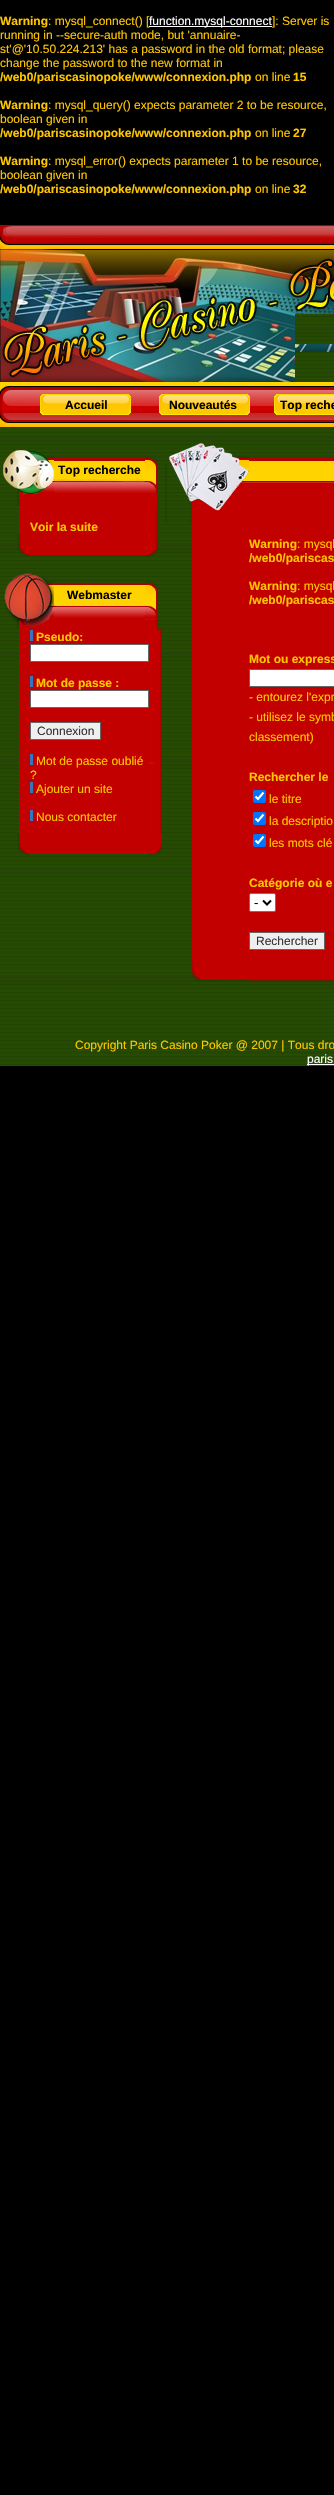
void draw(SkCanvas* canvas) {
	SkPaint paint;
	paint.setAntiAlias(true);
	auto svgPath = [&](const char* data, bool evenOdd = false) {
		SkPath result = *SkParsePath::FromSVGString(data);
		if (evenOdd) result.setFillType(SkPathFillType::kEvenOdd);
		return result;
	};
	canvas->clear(0xff000000);
	SkFont f1(fontMgr->matchFamilyStyle("Liberation Sans", SkFontStyle::Bold()), 12);
	f1.setSubpixel(true);
	paint.setColor(0xffffc700);
	canvas->drawString("Warning", 0, 25, f1, paint);
	SkFont f2(fontMgr->matchFamilyStyle("Liberation Sans", SkFontStyle::Normal()), 12);
	f2.setSubpixel(true);
	canvas->drawString(": mysql_connect() [", 48, 25, f2, paint);
	paint.setColor(0xffffffff);
	canvas->drawRect(SkRect::MakeXYWH(149, 26, 123, 1), paint);
	canvas->drawString("function.mysql-connect", 149, 25, f2, paint);
	paint.setColor(0xffffc700);
	canvas->drawString("]: Server is", 272, 25, f2, paint);
	canvas->drawString("running in --secure-auth mode, but 'annuaire-", 0, 39, f2, paint);
	canvas->drawString("st'@'10.50.224.213' has a password in the old format; please", 0, 53, f2, paint);
	canvas->drawString("change the password to the new format in", 0, 67, f2, paint);
	canvas->drawString("/web0/pariscasinopoke/www/connexion.php", 0, 81, f1, paint);
	canvas->drawString("on line", 255, 81, f2, paint);
	canvas->drawString("15", 293, 81, f1, paint);
	canvas->drawString("Warning", 0, 109, f1, paint);
	canvas->drawString(": mysql_query() expects parameter 2 to be resource,", 48, 109, f2, paint);
	canvas->drawString("boolean given in", 0, 123, f2, paint);
	canvas->drawString("/web0/pariscasinopoke/www/connexion.php", 0, 137, f1, paint);
	canvas->drawString("on line", 255, 137, f2, paint);
	canvas->drawString("27", 293, 137, f1, paint);
	canvas->drawString("Warning", 0, 165, f1, paint);
	canvas->drawString(": mysql_error() expects parameter 1 to be resource,", 48, 165, f2, paint);
	canvas->drawString("boolean given in", 0, 179, f2, paint);
	canvas->drawString("/web0/pariscasinopoke/www/connexion.php", 0, 193, f1, paint);
	canvas->drawString("on line", 255, 193, f2, paint);
	canvas->drawString("32", 293, 193, f1, paint);
	canvas->drawImageRect(SkImages::DeferredFromEncodedData(SkData::MakeFromFileName("img1.png")), SkRect::MakeXYWH(0, 314, 334, 752), SkSamplingOptions());
	canvas->drawImageRect(SkImages::DeferredFromEncodedData(SkData::MakeFromFileName("img2.png")), SkRect::MakeXYWH(0, 224, 334, 90), SkSamplingOptions());
	canvas->drawImageRect(SkImages::DeferredFromEncodedData(SkData::MakeFromFileName("img3.png")), SkRect::MakeXYWH(0, 314, 295, 68), SkSamplingOptions());
	canvas->drawImageRect(SkImages::DeferredFromEncodedData(SkData::MakeFromFileName("img4.png")), SkRect::MakeXYWH(295, 344, 39, 8), SkSamplingOptions());
	canvas->drawImageRect(SkImages::DeferredFromEncodedData(SkData::MakeFromFileName("img5.png")), SkRect::MakeXYWH(0, 382, 334, 45), SkSamplingOptions());
	canvas->drawImageRect(SkImages::DeferredFromEncodedData(SkData::MakeFromFileName("img6.png")), SkRect::MakeXYWH(40, 394, 91, 21), SkSamplingOptions());
	paint.setColor(0xff000000);
	canvas->drawString("Accueil", 65, 409, f1, paint);
	canvas->drawImageRect(SkImages::DeferredFromEncodedData(SkData::MakeFromFileName("img7.png")), SkRect::MakeXYWH(159, 394, 91, 21), SkSamplingOptions());
	canvas->drawString("Nouveautés", 169, 409, f1, paint);
	canvas->drawImageRect(SkImages::DeferredFromEncodedData(SkData::MakeFromFileName("img8.png")), SkRect::MakeXYWH(274, 394, 60, 21), SkSamplingOptions());
	canvas->drawString("Top reche", 280, 409, f1, paint);
	canvas->drawImageRect(SkImages::DeferredFromEncodedData(SkData::MakeFromFileName("img9.png")), SkRect::MakeXYWH(3, 450, 51, 56), SkSamplingOptions());
	paint.setColor(0xffad0000);
	canvas->drawRect(SkRect::MakeXYWH(54, 458, 91, 3), paint);
	canvas->drawImageRect(SkImages::DeferredFromEncodedData(SkData::MakeFromFileName("img10.png")), SkRect::MakeXYWH(145, 456, 13, 50), SkSamplingOptions());
	paint.setColor(0xffffd300);
	canvas->drawRect(SkRect::MakeXYWH(54, 461, 91, 18), paint);
	paint.setColor(0xff000000);
	canvas->drawString("Top recherche", 58, 474, f1, paint);
	canvas->drawImageRect(SkImages::DeferredFromEncodedData(SkData::MakeFromFileName("img11.png")), SkRect::MakeXYWH(54, 479, 91, 27), SkSamplingOptions());
	paint.setColor(0xffc20000);
	canvas->drawRect(SkRect::MakeXYWH(19, 506, 11, 28), paint);
	paint.setColor(0xffc30000);
	canvas->drawRect(SkRect::MakeXYWH(30, 506, 115, 49), paint);
	paint.setColor(0xffffc700);
	canvas->drawString("Voir la suite", 30, 531, f1, paint);
	canvas->drawImageRect(SkImages::DeferredFromEncodedData(SkData::MakeFromFileName("img12.png")), SkRect::MakeXYWH(145, 506, 13, 28), SkSamplingOptions());
	canvas->drawImageRect(SkImages::DeferredFromEncodedData(SkData::MakeFromFileName("img13.png")), SkRect::MakeXYWH(17, 534, 13, 23), SkSamplingOptions());
	canvas->drawImageRect(SkImages::DeferredFromEncodedData(SkData::MakeFromFileName("img14.png")), SkRect::MakeXYWH(145, 534, 13, 23), SkSamplingOptions());
	canvas->drawImageRect(SkImages::DeferredFromEncodedData(SkData::MakeFromFileName("img15.png")), SkRect::MakeXYWH(4, 573, 50, 57), SkSamplingOptions());
	paint.setColor(0xffad0000);
	canvas->drawRect(SkRect::MakeXYWH(54, 583, 91, 2), paint);
	canvas->drawImageRect(SkImages::DeferredFromEncodedData(SkData::MakeFromFileName("img16.png")), SkRect::MakeXYWH(145, 581, 13, 49), SkSamplingOptions());
	paint.setColor(0xffffd300);
	canvas->drawRect(SkRect::MakeXYWH(54, 585, 91, 20), paint);
	paint.setColor(0xff000000);
	canvas->drawString("Webmaster", 67, 599, f1, paint);
	canvas->drawImageRect(SkImages::DeferredFromEncodedData(SkData::MakeFromFileName("img17.png")), SkRect::MakeXYWH(54, 605, 91, 25), SkSamplingOptions());
	paint.setColor(0xffc20000);
	canvas->drawRect(SkRect::MakeXYWH(19, 630, 11, 204), paint);
	paint.setColor(0xffc30000);
	canvas->drawRect(SkRect::MakeXYWH(30, 630, 119, 224), paint);
	paint.setColor(0xff3674bd);
	canvas->drawRect(SkRect::MakeXYWH(30, 630, 3, 11), paint);
	paint.setColor(0xffffc700);
	canvas->drawString("Pseudo:", 36, 641, f1, paint);
	paint.setColor(0xffffffff);
	canvas->drawRect(SkRect::MakeXYWH(30.5, 644.5, 118, 17), paint);
	paint.setStroke(true);
	paint.setStrokeWidth(1);
	paint.setColor(0xff666666);
	canvas->drawRect(SkRect::MakeXYWH(30.5, 644.5, 118, 17), paint);
	paint.setStroke(false);
	paint.setColor(0xff3674bd);
	canvas->drawRect(SkRect::MakeXYWH(30, 676, 3, 11), paint);
	paint.setColor(0xffffc700);
	canvas->drawString("Mot de passe :", 36, 687, f1, paint);
	paint.setColor(0xffffffff);
	canvas->drawRect(SkRect::MakeXYWH(30.5, 690.5, 118, 17), paint);
	paint.setStroke(true);
	paint.setColor(0xff666666);
	canvas->drawRect(SkRect::MakeXYWH(30.5, 690.5, 118, 17), paint);
	paint.setStroke(false);
	paint.setColor(0xffefefef);
	canvas->drawRect(SkRect::MakeXYWH(30.5, 722.5, 70, 17), paint);
	paint.setStroke(true);
	paint.setColor(0xff666666);
	canvas->drawRect(SkRect::MakeXYWH(30.5, 722.5, 70, 17), paint);
	paint.setStroke(false);
	paint.setColor(0xff333333);
	canvas->drawString("Connexion", 37, 735, f2, paint);
	paint.setColor(0xff3674bd);
	canvas->drawRect(SkRect::MakeXYWH(30, 754, 3, 11), paint);
	paint.setColor(0xffffc700);
	canvas->drawString("Mot de passe oublié", 36, 765, f2, paint);
	canvas->drawString("?", 30, 779, f2, paint);
	paint.setColor(0xff3674bd);
	canvas->drawRect(SkRect::MakeXYWH(30, 782, 3, 11), paint);
	paint.setColor(0xffffc700);
	canvas->drawString("Ajouter un site", 36, 793, f2, paint);
	paint.setColor(0xff3674bd);
	canvas->drawRect(SkRect::MakeXYWH(30, 810, 3, 11), paint);
	paint.setColor(0xffffc700);
	canvas->drawString("Nous contacter", 36, 821, f2, paint);
	canvas->drawImageRect(SkImages::DeferredFromEncodedData(SkData::MakeFromFileName("img18.png")), SkRect::MakeXYWH(149, 630, 13, 204), SkSamplingOptions());
	canvas->drawImageRect(SkImages::DeferredFromEncodedData(SkData::MakeFromFileName("img19.png")), SkRect::MakeXYWH(17, 834, 13, 22), SkSamplingOptions());
	canvas->drawImageRect(SkImages::DeferredFromEncodedData(SkData::MakeFromFileName("img20.png")), SkRect::MakeXYWH(149, 834, 13, 22), SkSamplingOptions());
	canvas->drawImageRect(SkImages::DeferredFromEncodedData(SkData::MakeFromFileName("img21.png")), SkRect::MakeXYWH(165, 443, 84, 80), SkSamplingOptions());
	paint.setColor(0xffad0000);
	canvas->drawRect(SkRect::MakeXYWH(249, 458, 85, 3), paint);
	paint.setColor(0xffffd300);
	canvas->drawRect(SkRect::MakeXYWH(249, 461, 85, 18), paint);
	canvas->drawImageRect(SkImages::DeferredFromEncodedData(SkData::MakeFromFileName("img22.png")), SkRect::MakeXYWH(249, 479, 85, 10), SkSamplingOptions());
	paint.setColor(0xffc30000);
	canvas->drawRect(SkRect::MakeXYWH(249, 489, 85, 34), paint);
	canvas->drawRect(SkRect::MakeXYWH(192, 523, 142, 437), paint);
	paint.setColor(0xffffc700);
	canvas->drawString("Warning", 249, 548, f1, paint);
	canvas->drawString(": mysql", 297, 548, f2, paint);
	canvas->drawString("/web0/pariscas", 249, 562, f1, paint);
	canvas->drawString("Warning", 249, 590, f1, paint);
	canvas->drawString(": mysql", 297, 590, f2, paint);
	canvas->drawString("/web0/pariscas", 249, 604, f1, paint);
	canvas->drawString("Mot ou express", 249, 663, f1, paint);
	paint.setColor(0xffffffff);
	canvas->drawRect(SkRect::MakeXYWH(249.5, 669.5, 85, 17), paint);
	paint.setStroke(true);
	paint.setColor(0xff666666);
	canvas->drawRect(SkRect::MakeXYWH(249.5, 669.5, 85, 17), paint);
	paint.setStroke(false);
	paint.setColor(0xffffc700);
	canvas->drawString("- entourez l'expr", 249, 701, f2, paint);
	canvas->drawString("- utilisez le symb", 249, 721, f2, paint);
	canvas->drawString("classement)", 249, 741, f2, paint);
	canvas->drawString("Rechercher le", 249, 781, f1, paint);
	paint.setColor(0xff0075ff);
	canvas->drawRoundRect(SkRect::MakeXYWH(253, 790, 13, 13), 2, 2, paint);
	paint.setStroke(true);
	paint.setStrokeWidth(2.1);
	paint.setColor(0xffffffff);
	canvas->drawPath(svgPath("M255.5 796.5L258 799L263.5 792.5"), paint);
	paint.setStroke(false);
	paint.setColor(0xffffc700);
	canvas->drawString("le titre", 269, 803, f2, paint);
	paint.setColor(0xff0075ff);
	canvas->drawRoundRect(SkRect::MakeXYWH(253, 812, 13, 13), 2, 2, paint);
	paint.setStroke(true);
	paint.setColor(0xffffffff);
	canvas->drawPath(svgPath("M255.5 818.5L258 821L263.5 814.5"), paint);
	paint.setStroke(false);
	paint.setColor(0xffffc700);
	canvas->drawString("la descriptio", 269, 825, f2, paint);
	paint.setColor(0xff0075ff);
	canvas->drawRoundRect(SkRect::MakeXYWH(253, 834, 13, 13), 2, 2, paint);
	paint.setStroke(true);
	paint.setColor(0xffffffff);
	canvas->drawPath(svgPath("M255.5 840.5L258 843L263.5 836.5"), paint);
	paint.setStroke(false);
	paint.setColor(0xffffc700);
	canvas->drawString("les mots clé", 269, 847, f2, paint);
	canvas->drawString("Catégorie où e", 249, 887, f1, paint);
	paint.setColor(0xffffffff);
	canvas->drawRoundRect(SkRect::MakeXYWH(249.5, 893.5, 26, 18), 1.5, 1.5, paint);
	paint.setStroke(true);
	paint.setStrokeWidth(1);
	paint.setColor(0xff767676);
	canvas->drawRoundRect(SkRect::MakeXYWH(249.5, 893.5, 26, 18), 1.5, 1.5, paint);
	paint.setStrokeWidth(2);
	paint.setColor(0xff000000);
	canvas->drawPath(svgPath("M263 900.5L267 904.5L271 900.5"), paint);
	SkFont f3(fontMgr->matchFamilyStyle("Liberation Sans", SkFontStyle::Normal()), 13);
	f3.setSubpixel(true);
	paint.setStroke(false);
	canvas->drawString("-", 254, 907, f3, paint);
	paint.setColor(0xffefefef);
	canvas->drawRect(SkRect::MakeXYWH(249.5, 932.5, 75, 17), paint);
	paint.setStroke(true);
	paint.setStrokeWidth(1);
	paint.setColor(0xff666666);
	canvas->drawRect(SkRect::MakeXYWH(249.5, 932.5, 75, 17), paint);
	paint.setStroke(false);
	paint.setColor(0xff333333);
	canvas->drawString("Rechercher", 256, 945, f2, paint);
	canvas->drawImageRect(SkImages::DeferredFromEncodedData(SkData::MakeFromFileName("img23.png")), SkRect::MakeXYWH(192, 960, 57, 22), SkSamplingOptions());
	canvas->drawImageRect(SkImages::DeferredFromEncodedData(SkData::MakeFromFileName("img24.png")), SkRect::MakeXYWH(249, 960, 85, 22), SkSamplingOptions());
	paint.setColor(0xffffc700);
	canvas->drawString("Copyright Paris Casino Poker @ 2007 | Tous dro", 75, 1049, f2, paint);
	paint.setColor(0xffffffff);
	canvas->drawRect(SkRect::MakeXYWH(307, 1064, 27, 1), paint);
	canvas->drawString("paris", 307, 1063, f2, paint);
}
